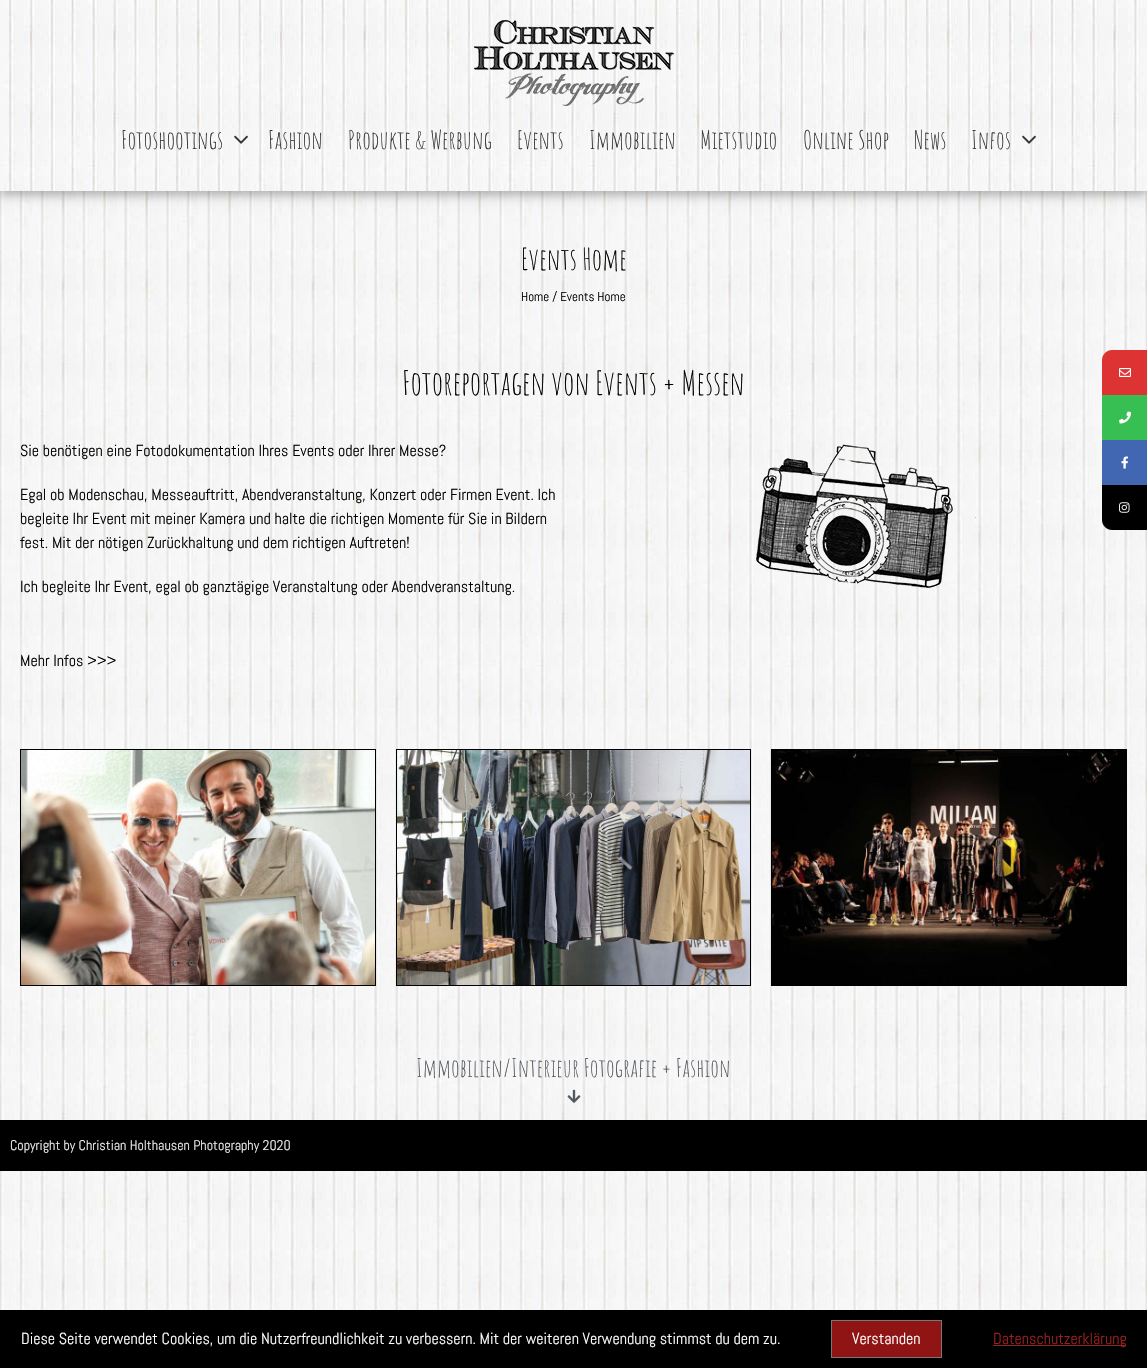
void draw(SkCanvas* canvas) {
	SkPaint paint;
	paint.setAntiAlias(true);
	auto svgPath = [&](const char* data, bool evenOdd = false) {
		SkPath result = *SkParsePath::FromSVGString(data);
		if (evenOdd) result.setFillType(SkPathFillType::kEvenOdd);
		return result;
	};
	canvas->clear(0xffffffff);
	canvas->drawImageRect(SkImages::DeferredFromEncodedData(SkData::MakeFromFileName("img1.png")), SkRect::MakeXYWH(0, 191, 1147, 1119), SkSamplingOptions());
	paint.setColor(0x4d000000);
	paint.setMaskFilter(SkMaskFilter::MakeBlur(kNormal_SkBlurStyle, 5));
	canvas->drawRect(SkRect::MakeXYWH(0, 4, 1147, 191), paint);
	paint.setMaskFilter(nullptr);
	canvas->drawImageRect(SkImages::DeferredFromEncodedData(SkData::MakeFromFileName("img2.png")), SkRect::MakeXYWH(0, 0, 1147, 191), SkSamplingOptions());
	canvas->drawImageRect(SkImages::DeferredFromEncodedData(SkData::MakeFromFileName("img3.png")), SkRect::MakeXYWH(474, 20, 200, 86), SkSamplingOptions());
	SkFont f1(fontMgr->matchFamilyStyle("Amatic SC", SkFontStyle::Normal()), 25);
	f1.setSubpixel(true);
	paint.setColor(0xff333333);
	canvas->drawString("Fotoshootings", 121, 149, f1, paint);
	canvas->drawImageRect(SkImages::DeferredFromEncodedData(SkData::MakeFromFileName("img4.png")), SkRect::MakeXYWH(234, 135, 14, 9), SkSamplingOptions());
	canvas->drawString("Fashion", 268, 149, f1, paint);
	canvas->drawString("Produkte & Werbung", 348, 149, f1, paint);
	canvas->drawString("Events", 517, 149, f1, paint);
	canvas->drawString("Immobilien", 589, 149, f1, paint);
	canvas->drawString("Mietstudio", 700, 149, f1, paint);
	canvas->drawString("Online Shop", 803, 149, f1, paint);
	canvas->drawString("News", 914, 149, f1, paint);
	canvas->drawString("Infos", 971, 149, f1, paint);
	canvas->drawImageRect(SkImages::DeferredFromEncodedData(SkData::MakeFromFileName("img5.png")), SkRect::MakeXYWH(1022, 135, 14, 9), SkSamplingOptions());
	SkFont f2(fontMgr->matchFamilyStyle("Amatic SC", SkFontStyle::Normal()), 30);
	f2.setSubpixel(true);
	paint.setColor(0xff000000);
	canvas->drawString("Events Home", 521, 270, f2, paint);
	SkFont f3(fontMgr->matchFamilyStyle("Abel", SkFontStyle::Normal()), 13);
	f3.setSubpixel(true);
	canvas->drawString("Home / Events Home", 521, 301, f3, paint);
	SkFont f4(fontMgr->matchFamilyStyle("Amatic SC", SkFontStyle::Normal()), 33);
	f4.setSubpixel(true);
	canvas->drawString("Fotoreportagen von Events + Messen", 402, 395, f4, paint);
	SkFont f5(fontMgr->matchFamilyStyle("Abel", SkFontStyle::Normal()), 16);
	f5.setSubpixel(true);
	canvas->drawString("Sie benötigen eine Fotodokumentation Ihres Events oder Ihrer Messe?", 20, 456, f5, paint);
	canvas->drawString("Egal ob Modenschau, Messeauftritt, Abendveranstaltung, Konzert oder Firmen Event. Ich", 20, 500, f5, paint);
	canvas->drawString("begleite Ihr Event mit meiner Kamera und halte die richtigen Momente für Sie in Bildern", 20, 524, f5, paint);
	canvas->drawString("fest. Mit der nötigen Zurückhaltung und dem richtigen Auftreten!", 20, 548, f5, paint);
	canvas->drawString("Ich begleite Ihr Event, egal ob ganztägige Veranstaltung oder Abendveranstaltung.", 20, 592, f5, paint);
	canvas->drawString("Mehr Infos >>>", 20, 666, f5, paint);
	canvas->drawImageRect(SkImages::DeferredFromEncodedData(SkData::MakeFromFileName("img6.png")), SkRect::MakeXYWH(756, 444, 220, 150), SkSamplingOptions());
	paint.setStroke(true);
	paint.setStrokeWidth(1);
	canvas->drawRect(SkRect::MakeXYWH(20.5, 749.5, 355, 236), paint);
	canvas->drawImageRect(SkImages::DeferredFromEncodedData(SkData::MakeFromFileName("img7.png")), SkRect::MakeXYWH(21, 750, 354, 235), SkSamplingOptions());
	canvas->drawRect(SkRect::MakeXYWH(396.5, 749.5, 354, 236), paint);
	canvas->drawImageRect(SkImages::DeferredFromEncodedData(SkData::MakeFromFileName("img8.png")), SkRect::MakeXYWH(397, 750, 353, 235), SkSamplingOptions());
	canvas->drawRect(SkRect::MakeXYWH(771.5, 749.5, 355, 236), paint);
	canvas->drawImageRect(SkImages::DeferredFromEncodedData(SkData::MakeFromFileName("img9.png")), SkRect::MakeXYWH(772, 750, 354, 235), SkSamplingOptions());
	paint.setStroke(false);
	paint.setColor(0xff54595f);
	canvas->drawString("Immobilien/Interieur Fotografie + Fashion", 416, 1077, f1, paint);
	canvas->drawImageRect(SkImages::DeferredFromEncodedData(SkData::MakeFromFileName("img10.png")), SkRect::MakeXYWH(567, 1089, 14, 14), SkSamplingOptions());
	paint.setColor(0xff000000);
	canvas->drawRect(SkRect::MakeXYWH(0, 1120, 1147, 51), paint);
	SkFont f6(fontMgr->matchFamilyStyle("Abel", SkFontStyle::Normal()), 14);
	f6.setSubpixel(true);
	paint.setColor(0xffeeeeee);
	canvas->drawString("Copyright by Christian Holthausen Photography 2020", 10, 1150, f6, paint);
	paint.setColor(0xffdd3333);
	canvas->drawPath(svgPath("M1112 350H1147V395H1102V360C1102 354.5 1106.5 350 1112 350Z"), paint);
	canvas->drawImageRect(SkImages::DeferredFromEncodedData(SkData::MakeFromFileName("img11.png")), SkRect::MakeXYWH(1119, 368, 12, 9), SkSamplingOptions());
	paint.setColor(0xff37bf54);
	canvas->drawRect(SkRect::MakeXYWH(1102, 395, 45, 45), paint);
	canvas->drawImageRect(SkImages::DeferredFromEncodedData(SkData::MakeFromFileName("img12.png")), SkRect::MakeXYWH(1119, 411, 12, 13), SkSamplingOptions());
	paint.setColor(0xff4267b2);
	canvas->drawRect(SkRect::MakeXYWH(1102, 440, 45, 45), paint);
	canvas->drawImageRect(SkImages::DeferredFromEncodedData(SkData::MakeFromFileName("img13.png")), SkRect::MakeXYWH(1121, 456, 7, 13), SkSamplingOptions());
	paint.setColor(0xff000000);
	canvas->drawPath(svgPath("M1102 485H1147V530H1112C1106.5 530 1102 525.5 1102 520Z"), paint);
	canvas->drawImageRect(SkImages::DeferredFromEncodedData(SkData::MakeFromFileName("img14.png")), SkRect::MakeXYWH(1119, 502, 11, 11), SkSamplingOptions());
	canvas->drawRect(SkRect::MakeXYWH(0, 1310, 1147, 58), paint);
	paint.setColor(0xffffffff);
	canvas->drawString("Diese Seite verwendet Cookies, um die Nutzerfreundlichkeit zu verbessern. Mit der weiteren Verwendung stimmst du dem zu.", 21, 1344, f5, paint);
	paint.setColor(0xff911414);
	canvas->drawRect(SkRect::MakeXYWH(831.5, 1320.5, 110, 37), paint);
	paint.setStroke(true);
	paint.setColor(0xff777777);
	canvas->drawRect(SkRect::MakeXYWH(831.5, 1320.5, 110, 37), paint);
	paint.setStroke(false);
	paint.setColor(0xffffffff);
	canvas->drawString("Verstanden", 852, 1344, f5, paint);
	paint.setColor(0xff992121);
	canvas->drawRect(SkRect::MakeXYWH(993, 1345, 133, 1), paint);
	canvas->drawString("Datenschutzerklärung", 993, 1344, f5, paint);
}
